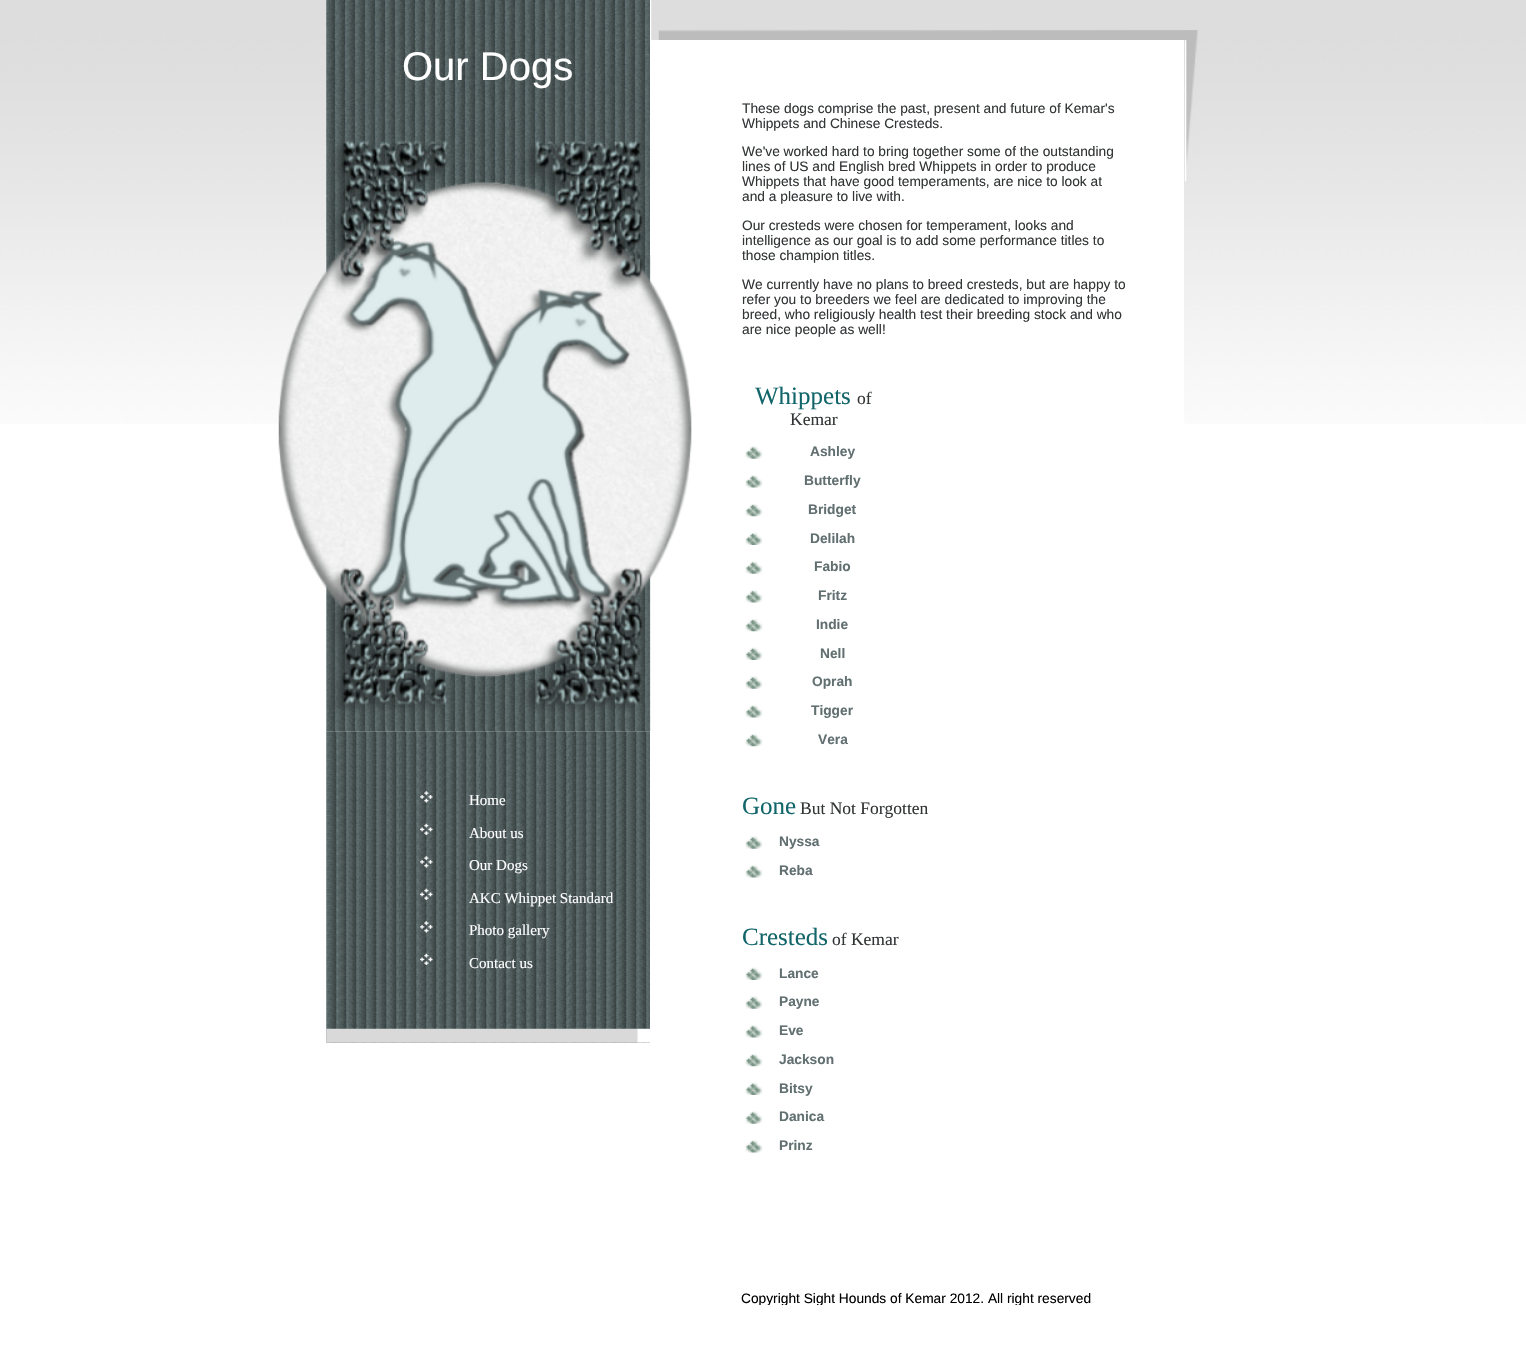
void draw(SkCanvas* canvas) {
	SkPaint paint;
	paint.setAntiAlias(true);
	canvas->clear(0xffffffff);
	canvas->drawImageRect(SkImages::DeferredFromEncodedData(SkData::MakeFromFileName("img1.png")), SkRect::MakeXYWH(0, 0, 1526, 424), SkSamplingOptions());
	paint.setColor(0xffffffff);
	canvas->drawRect(SkRect::MakeXYWH(650, 0, 534, 424), paint);
	canvas->drawImageRect(SkImages::DeferredFromEncodedData(SkData::MakeFromFileName("img2.png")), SkRect::MakeXYWH(651, 0, 534, 40), SkSamplingOptions());
	canvas->drawImageRect(SkImages::DeferredFromEncodedData(SkData::MakeFromFileName("img3.png")), SkRect::MakeXYWH(326, 0, 324, 255), SkSamplingOptions());
	SkFont f1(fontMgr->matchFamilyStyle("Liberation Sans", SkFontStyle::Normal()), 40);
	f1.setSubpixel(true);
	canvas->drawString("Our Dogs", 402, 80, f1, paint);
	canvas->drawImageRect(SkImages::DeferredFromEncodedData(SkData::MakeFromFileName("img4.png")), SkRect::MakeXYWH(1185, 30, 13, 152), SkSamplingOptions());
	canvas->drawImageRect(SkImages::DeferredFromEncodedData(SkData::MakeFromFileName("img11.png")), SkRect::MakeXYWH(326, 731, 324, 312), SkSamplingOptions());
	canvas->drawImageRect(SkImages::DeferredFromEncodedData(SkData::MakeFromFileName("img5.png")), SkRect::MakeXYWH(278, 255, 414, 477), SkSamplingOptions());
	SkFont f2(fontMgr->matchFamilyStyle("Liberation Sans", SkFontStyle::Normal()), 13.75);
	f2.setSubpixel(true);
	paint.setColor(0xff323536);
	canvas->drawString("These dogs comprise the past, present and future of Kemar's", 742, 113, f2, paint);
	canvas->drawString("Whippets and Chinese Cresteds.", 742, 128, f2, paint);
	canvas->drawString("We've worked hard to bring together some of the outstanding", 742, 156, f2, paint);
	canvas->drawString("lines of US and English bred Whippets in order to produce", 742, 171, f2, paint);
	canvas->drawString("Whippets that have good temperaments, are nice to look at", 742, 186, f2, paint);
	canvas->drawString("and a pleasure to live with.", 742, 201, f2, paint);
	canvas->drawString("Our cresteds were chosen for temperament, looks and", 742, 230, f2, paint);
	canvas->drawString("intelligence as our goal is to add some performance titles to", 742, 245, f2, paint);
	canvas->drawString("those champion titles.", 742, 260, f2, paint);
	canvas->drawString("We currently have no plans to breed cresteds, but are happy to", 742, 289, f2, paint);
	canvas->drawString("refer you to breeders we feel are dedicated to improving the", 742, 304, f2, paint);
	canvas->drawString("breed, who religiously health test their breeding stock and who", 742, 319, f2, paint);
	canvas->drawString("are nice people as well!", 742, 334, f2, paint);
	SkFont f3(fontMgr->matchFamilyStyle("Liberation Serif", SkFontStyle::Normal()), 25);
	f3.setSubpixel(true);
	paint.setColor(0xff12666a);
	canvas->drawString("Whippets", 755, 404, f3, paint);
	SkFont f4(fontMgr->matchFamilyStyle("Liberation Serif", SkFontStyle::Normal()), 17.5);
	f4.setSubpixel(true);
	paint.setColor(0xff323536);
	canvas->drawString("of", 857, 404, f4, paint);
	canvas->drawString("Kemar", 790, 425, f4, paint);
	canvas->drawImageRect(SkImages::DeferredFromEncodedData(SkData::MakeFromFileName("img6.png")), SkRect::MakeXYWH(745, 446, 18, 13), SkSamplingOptions());
	SkFont f5(fontMgr->matchFamilyStyle("Liberation Sans", SkFontStyle::Bold()), 13.75);
	f5.setSubpixel(true);
	paint.setColor(0xff616f70);
	canvas->drawString("Ashley", 810, 456, f5, paint);
	canvas->drawImageRect(SkImages::DeferredFromEncodedData(SkData::MakeFromFileName("img7.png")), SkRect::MakeXYWH(745, 475, 18, 13), SkSamplingOptions());
	canvas->drawString("Butterfly", 804, 485, f5, paint);
	canvas->drawImageRect(SkImages::DeferredFromEncodedData(SkData::MakeFromFileName("img8.png")), SkRect::MakeXYWH(745, 504, 18, 13), SkSamplingOptions());
	canvas->drawString("Bridget", 808, 514, f5, paint);
	canvas->drawImageRect(SkImages::DeferredFromEncodedData(SkData::MakeFromFileName("img9.png")), SkRect::MakeXYWH(745, 532, 18, 13), SkSamplingOptions());
	canvas->drawString("Delilah", 810, 543, f5, paint);
	canvas->drawImageRect(SkImages::DeferredFromEncodedData(SkData::MakeFromFileName("img6.png")), SkRect::MakeXYWH(745, 561, 18, 13), SkSamplingOptions());
	canvas->drawString("Fabio", 814, 571, f5, paint);
	canvas->drawImageRect(SkImages::DeferredFromEncodedData(SkData::MakeFromFileName("img10.png")), SkRect::MakeXYWH(745, 590, 18, 13), SkSamplingOptions());
	canvas->drawString("Fritz", 818, 600, f5, paint);
	canvas->drawImageRect(SkImages::DeferredFromEncodedData(SkData::MakeFromFileName("img8.png")), SkRect::MakeXYWH(745, 619, 18, 13), SkSamplingOptions());
	canvas->drawString("Indie", 816, 629, f5, paint);
	canvas->drawImageRect(SkImages::DeferredFromEncodedData(SkData::MakeFromFileName("img9.png")), SkRect::MakeXYWH(745, 647, 18, 13), SkSamplingOptions());
	canvas->drawString("Nell", 820, 658, f5, paint);
	canvas->drawImageRect(SkImages::DeferredFromEncodedData(SkData::MakeFromFileName("img6.png")), SkRect::MakeXYWH(745, 676, 18, 13), SkSamplingOptions());
	canvas->drawString("Oprah", 812, 686, f5, paint);
	canvas->drawImageRect(SkImages::DeferredFromEncodedData(SkData::MakeFromFileName("img7.png")), SkRect::MakeXYWH(745, 705, 18, 13), SkSamplingOptions());
	canvas->drawString("Tigger", 811, 715, f5, paint);
	canvas->drawImageRect(SkImages::DeferredFromEncodedData(SkData::MakeFromFileName("img8.png")), SkRect::MakeXYWH(745, 734, 18, 13), SkSamplingOptions());
	canvas->drawString("Vera", 818, 744, f5, paint);
	paint.setColor(0xff12666a);
	canvas->drawString("Gone", 742, 814, f3, paint);
	paint.setColor(0xff323536);
	canvas->drawString("But Not Forgotten", 800, 814, f4, paint);
	canvas->drawImageRect(SkImages::DeferredFromEncodedData(SkData::MakeFromFileName("img6.png")), SkRect::MakeXYWH(745, 836, 18, 13), SkSamplingOptions());
	paint.setColor(0xff616f70);
	canvas->drawString("Nyssa", 779, 846, f5, paint);
	canvas->drawImageRect(SkImages::DeferredFromEncodedData(SkData::MakeFromFileName("img7.png")), SkRect::MakeXYWH(745, 865, 18, 13), SkSamplingOptions());
	canvas->drawString("Reba", 779, 875, f5, paint);
	paint.setColor(0xff12666a);
	canvas->drawString("Cresteds", 742, 945, f3, paint);
	paint.setColor(0xff323536);
	canvas->drawString("of Kemar", 832, 945, f4, paint);
	canvas->drawImageRect(SkImages::DeferredFromEncodedData(SkData::MakeFromFileName("img9.png")), SkRect::MakeXYWH(745, 967, 18, 13), SkSamplingOptions());
	paint.setColor(0xff616f70);
	canvas->drawString("Lance", 779, 978, f5, paint);
	canvas->drawImageRect(SkImages::DeferredFromEncodedData(SkData::MakeFromFileName("img6.png")), SkRect::MakeXYWH(745, 996, 18, 13), SkSamplingOptions());
	canvas->drawString("Payne", 779, 1006, f5, paint);
	canvas->drawImageRect(SkImages::DeferredFromEncodedData(SkData::MakeFromFileName("img10.png")), SkRect::MakeXYWH(745, 1025, 18, 13), SkSamplingOptions());
	canvas->drawString("Eve", 779, 1035, f5, paint);
	canvas->drawImageRect(SkImages::DeferredFromEncodedData(SkData::MakeFromFileName("img8.png")), SkRect::MakeXYWH(745, 1054, 18, 13), SkSamplingOptions());
	canvas->drawString("Jackson", 779, 1064, f5, paint);
	canvas->drawImageRect(SkImages::DeferredFromEncodedData(SkData::MakeFromFileName("img9.png")), SkRect::MakeXYWH(745, 1082, 18, 13), SkSamplingOptions());
	canvas->drawString("Bitsy", 779, 1093, f5, paint);
	canvas->drawImageRect(SkImages::DeferredFromEncodedData(SkData::MakeFromFileName("img6.png")), SkRect::MakeXYWH(745, 1111, 18, 13), SkSamplingOptions());
	canvas->drawString("Danica", 779, 1121, f5, paint);
	canvas->drawImageRect(SkImages::DeferredFromEncodedData(SkData::MakeFromFileName("img7.png")), SkRect::MakeXYWH(745, 1140, 18, 13), SkSamplingOptions());
	canvas->drawString("Prinz", 779, 1150, f5, paint);
	canvas->save();
	canvas->clipRect(SkRect::MakeXYWH(650, 0, 534, 1305));
	paint.setColor(0xff000000);
	canvas->drawString("Copyright Sight Hounds of Kemar 2012. All right reserved", 741, 1303, f2, paint);
	canvas->restore();
	canvas->drawImageRect(SkImages::DeferredFromEncodedData(SkData::MakeFromFileName("img12.png")), SkRect::MakeXYWH(326, 1028, 324, 15), SkSamplingOptions());
	canvas->drawImageRect(SkImages::DeferredFromEncodedData(SkData::MakeFromFileName("img13.png")), SkRect::MakeXYWH(420, 791, 13, 12), SkSamplingOptions());
	SkFont f6(fontMgr->matchFamilyStyle("Liberation Serif", SkFontStyle::Normal()), 15);
	f6.setSubpixel(true);
	paint.setColor(0xffffffff);
	canvas->drawString("Home", 469, 805, f6, paint);
	canvas->drawImageRect(SkImages::DeferredFromEncodedData(SkData::MakeFromFileName("img14.png")), SkRect::MakeXYWH(420, 823, 13, 12), SkSamplingOptions());
	canvas->drawString("About us", 469, 838, f6, paint);
	canvas->drawImageRect(SkImages::DeferredFromEncodedData(SkData::MakeFromFileName("img15.png")), SkRect::MakeXYWH(420, 856, 13, 12), SkSamplingOptions());
	canvas->drawString("Our Dogs", 469, 870, f6, paint);
	canvas->drawImageRect(SkImages::DeferredFromEncodedData(SkData::MakeFromFileName("img16.png")), SkRect::MakeXYWH(420, 888, 13, 12), SkSamplingOptions());
	canvas->drawString("AKC Whippet Standard", 469, 903, f6, paint);
	canvas->drawImageRect(SkImages::DeferredFromEncodedData(SkData::MakeFromFileName("img17.png")), SkRect::MakeXYWH(420, 921, 13, 12), SkSamplingOptions());
	canvas->drawString("Photo gallery", 469, 935, f6, paint);
	canvas->drawImageRect(SkImages::DeferredFromEncodedData(SkData::MakeFromFileName("img18.png")), SkRect::MakeXYWH(420, 953, 13, 12), SkSamplingOptions());
	canvas->drawString("Contact us", 469, 968, f6, paint);
}
